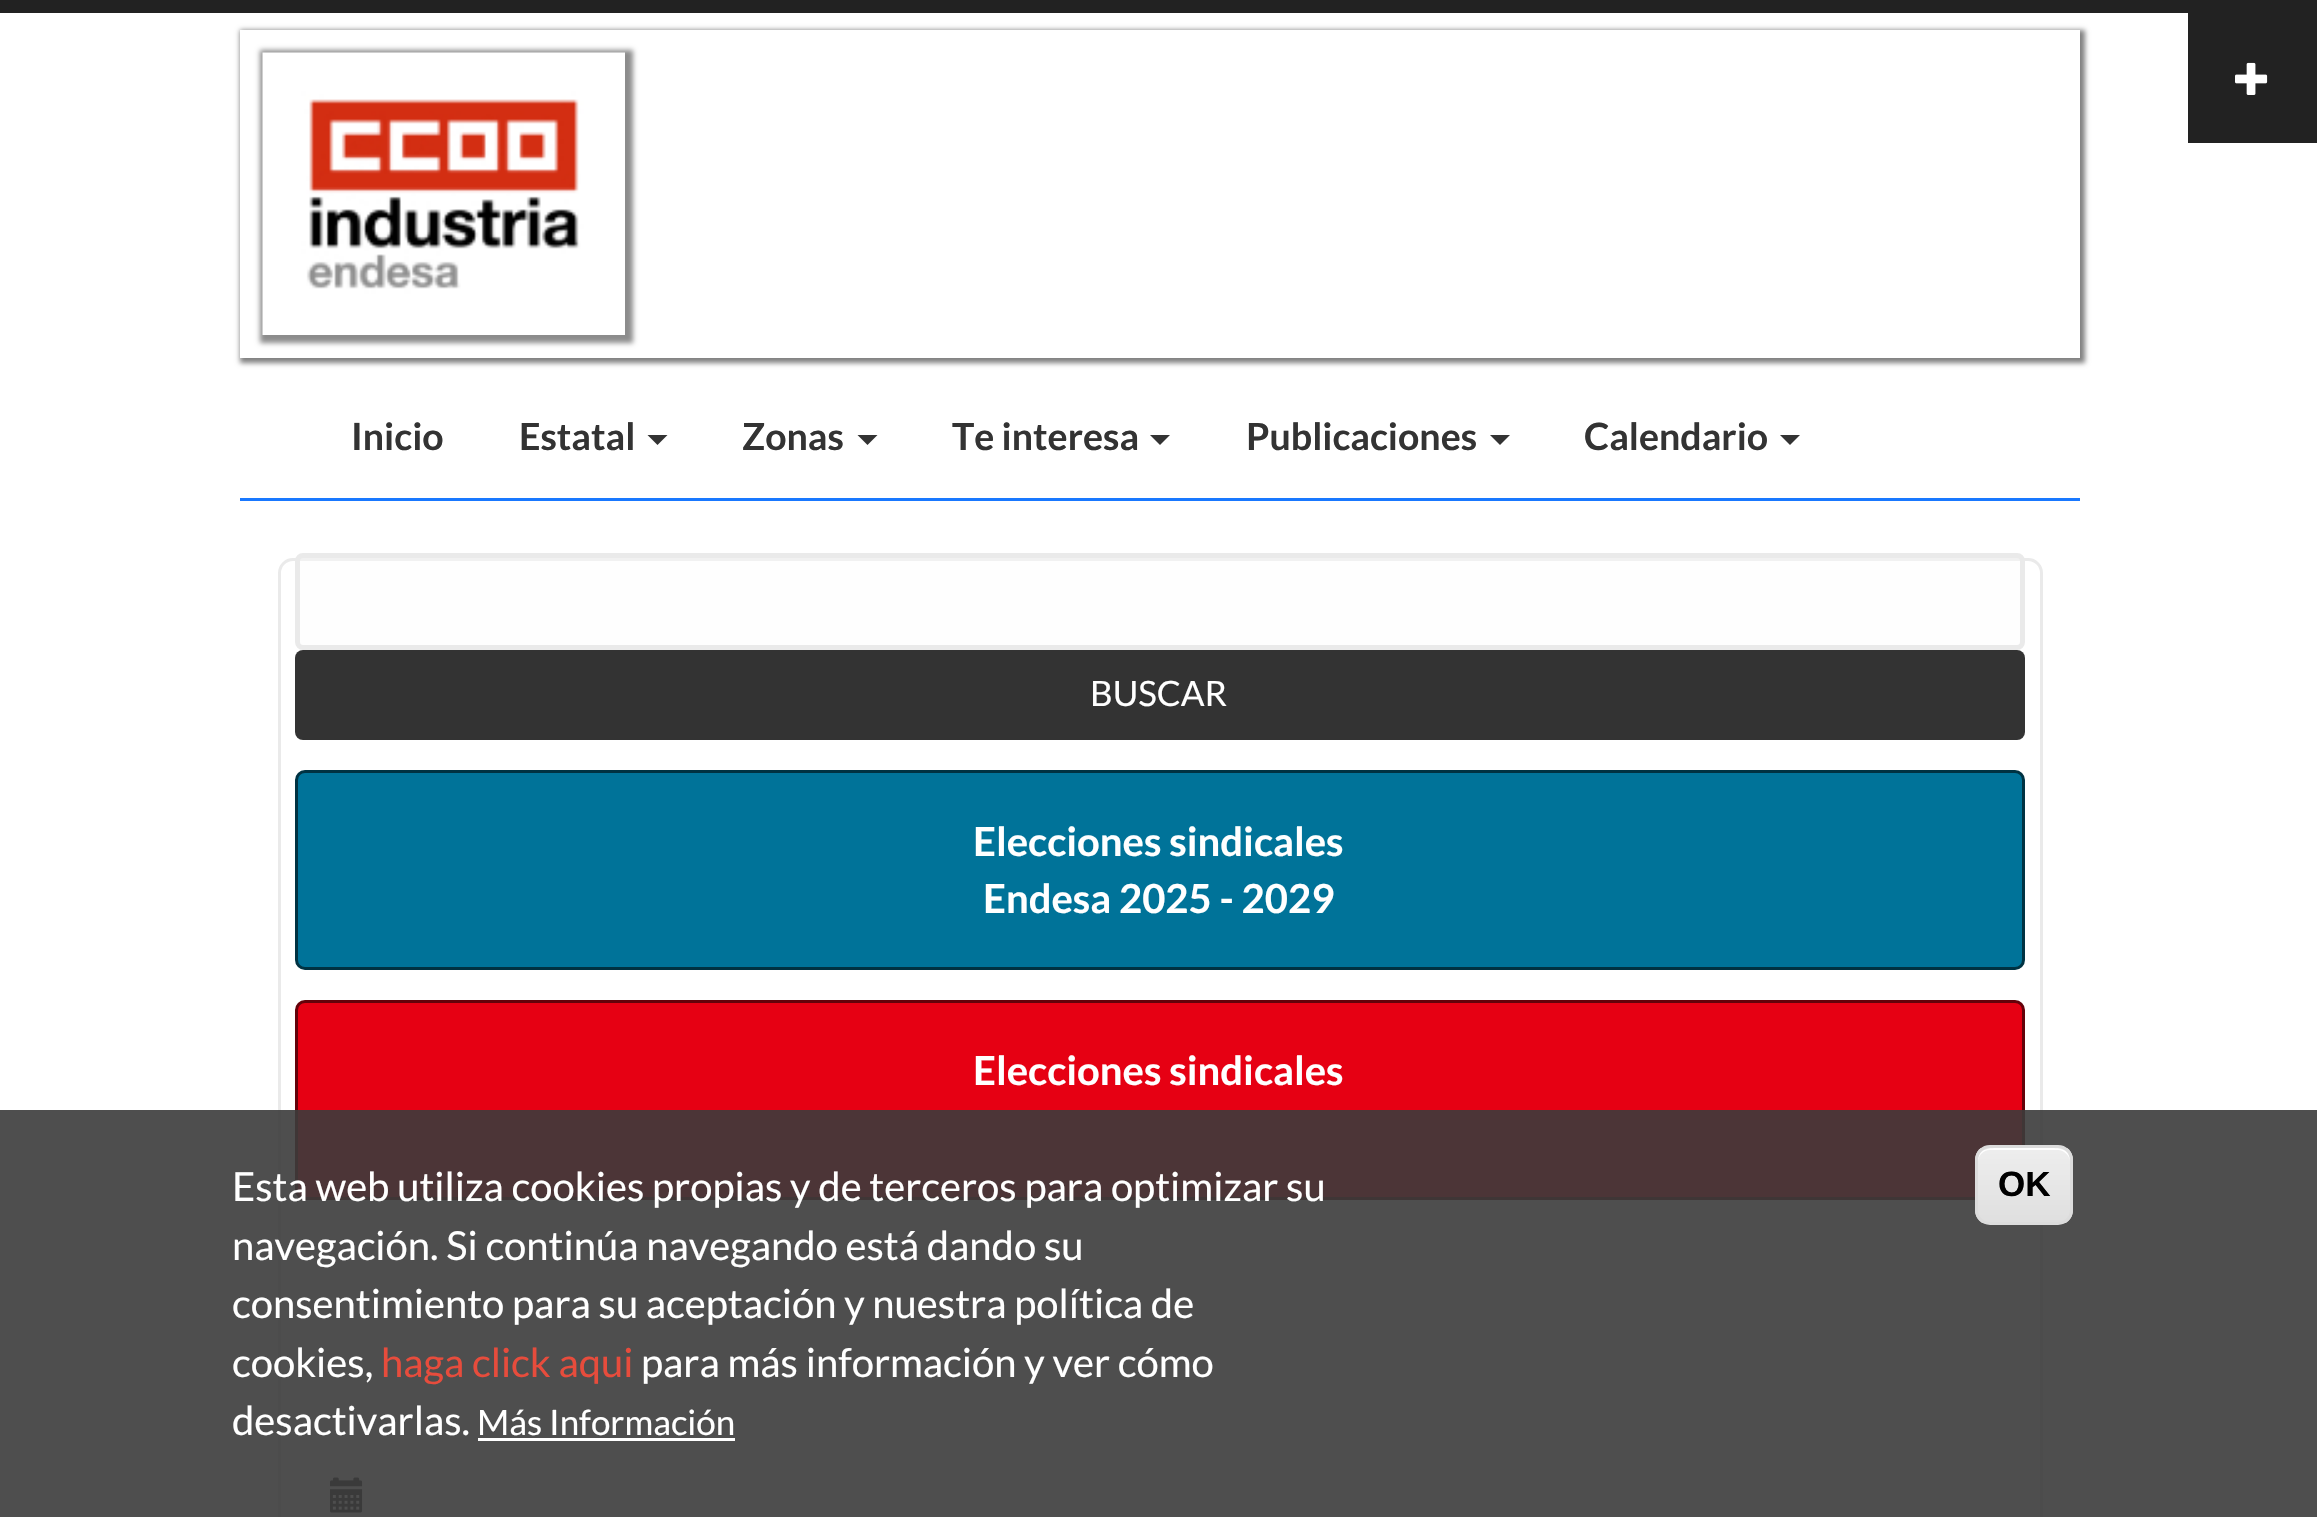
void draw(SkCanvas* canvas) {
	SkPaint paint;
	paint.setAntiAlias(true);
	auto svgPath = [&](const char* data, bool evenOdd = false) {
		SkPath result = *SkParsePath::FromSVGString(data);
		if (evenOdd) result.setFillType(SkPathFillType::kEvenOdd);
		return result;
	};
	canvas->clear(0xffffffff);
	paint.setColor(0xff222222);
	canvas->drawRect(SkRect::MakeXYWH(0, 0, 2317, 13), paint);
	canvas->drawRect(SkRect::MakeXYWH(2188, 13, 129, 130), paint);
	canvas->drawImageRect(SkImages::DeferredFromEncodedData(SkData::MakeFromFileName("img1.png")), SkRect::MakeXYWH(2235, 62, 33, 33), SkSamplingOptions());
	canvas->save();
	canvas->clipPath(svgPath("M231 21H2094V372H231ZM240 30H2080V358H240Z", true), true);
	paint.setColor(0x80000000);
	paint.setMaskFilter(SkMaskFilter::MakeBlur(kNormal_SkBlurStyle, 2.5));
	canvas->drawRect(SkRect::MakeXYWH(240, 30, 1845, 333), paint);
	paint.setMaskFilter(nullptr);
	canvas->restore();
	paint.setColor(0xff8c8c8c);
	paint.setMaskFilter(SkMaskFilter::MakeBlur(kNormal_SkBlurStyle, 2.5));
	canvas->drawRect(SkRect::MakeXYWH(260, 50, 373, 293), paint);
	paint.setMaskFilter(nullptr);
	canvas->drawImageRect(SkImages::DeferredFromEncodedData(SkData::MakeFromFileName("img2.png")), SkRect::MakeXYWH(262, 52, 363, 283), SkSamplingOptions());
	paint.setColor(0xff1978ff);
	canvas->drawRect(SkRect::MakeXYWH(240, 498, 1840, 3), paint);
	SkFont f1(fontMgr->matchFamilyStyle("Lato", SkFontStyle::Bold()), 37.5);
	f1.setSubpixel(true);
	paint.setColor(0xff333333);
	canvas->drawString("Inicio", 351, 450, f1, paint);
	canvas->drawString("Estatal", 519, 450, f1, paint);
	canvas->drawPath(svgPath("M647.5 435H667.5L657.5 445Z"), paint);
	canvas->drawString("Zonas", 742, 450, f1, paint);
	canvas->drawPath(svgPath("M857.5 435H877.5L867.5 445Z"), paint);
	canvas->drawString("Te interesa", 952, 450, f1, paint);
	canvas->drawPath(svgPath("M1150 435H1170L1160 445Z"), paint);
	canvas->drawString("Publicaciones", 1246, 450, f1, paint);
	canvas->drawPath(svgPath("M1490 435H1510L1500 445Z"), paint);
	canvas->drawString("Calendario", 1584, 450, f1, paint);
	canvas->drawPath(svgPath("M1780 435H1800L1790 445Z"), paint);
	paint.setStroke(true);
	paint.setStrokeWidth(3);
	paint.setColor(0xffeaeaea);
	canvas->drawRoundRect(SkRect::MakeXYWH(279.5, 559.5, 1762, 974), 13.5, 13.5, paint);
	paint.setStroke(false);
	paint.setColor(0x66fcfcfc);
	canvas->drawRoundRect(SkRect::MakeXYWH(297.5, 555.5, 1725, 92), 5.5, 5.5, paint);
	paint.setStroke(true);
	paint.setStrokeWidth(5);
	paint.setColor(0xffeaeaea);
	canvas->drawRoundRect(SkRect::MakeXYWH(297.5, 555.5, 1725, 92), 5.5, 5.5, paint);
	paint.setStroke(false);
	paint.setColor(0xff333333);
	canvas->drawRoundRect(SkRect::MakeXYWH(295, 650, 1730, 90), 8, 8, paint);
	SkFont f2(fontMgr->matchFamilyStyle("Lato", SkFontStyle::Normal()), 35);
	f2.setSubpixel(true);
	paint.setColor(0xffffffff);
	canvas->drawString("BUSCAR", 1090, 706, f2, paint);
	paint.setColor(0xff007399);
	canvas->drawRoundRect(SkRect::MakeXYWH(296.5, 771.5, 1727, 197), 8.5, 8.5, paint);
	paint.setStroke(true);
	paint.setStrokeWidth(3);
	paint.setColor(0xff003242);
	canvas->drawRoundRect(SkRect::MakeXYWH(296.5, 771.5, 1727, 197), 8.5, 8.5, paint);
	SkFont f3(fontMgr->matchFamilyStyle("Lato", SkFontStyle::Bold()), 40);
	f3.setSubpixel(true);
	paint.setStroke(false);
	paint.setColor(0xffffffff);
	canvas->drawString("Elecciones sindicales", 973, 856, f3, paint);
	canvas->drawString("Endesa 2025 - 2029", 983, 913, f3, paint);
	paint.setColor(0xffe60013);
	canvas->drawRoundRect(SkRect::MakeXYWH(296.5, 1001.5, 1727, 197), 8.5, 8.5, paint);
	paint.setStroke(true);
	paint.setColor(0xff64020a);
	canvas->drawRoundRect(SkRect::MakeXYWH(296.5, 1001.5, 1727, 197), 8.5, 8.5, paint);
	paint.setStroke(false);
	paint.setColor(0xffffffff);
	canvas->drawString("Elecciones sindicales", 973, 1085, f3, paint);
	canvas->drawImageRect(SkImages::DeferredFromEncodedData(SkData::MakeFromFileName("img3.png")), SkRect::MakeXYWH(330, 1477, 33, 36), SkSamplingOptions());
	paint.setColor(0xe63b3b3b);
	canvas->drawRect(SkRect::MakeXYWH(0, 1110, 2317, 407), paint);
	SkFont f4(fontMgr->matchFamilyStyle("Lato", SkFontStyle::Normal()), 40);
	f4.setSubpixel(true);
	paint.setColor(0xffffffff);
	canvas->drawString("Esta web utiliza cookies propias y de terceros para optimizar su", 232, 1201, f4, paint);
	canvas->drawString("navegación. Si continúa navegando está dando su", 232, 1260, f4, paint);
	canvas->drawString("consentimiento para su aceptación y nuestra política de", 232, 1318, f4, paint);
	canvas->drawString("cookies,", 232, 1377, f4, paint);
	paint.setColor(0xffe74c3c);
	canvas->drawString("haga click aqui", 381, 1377, f4, paint);
	paint.setColor(0xffffffff);
	canvas->drawString("para más información y ver cómo", 641, 1377, f4, paint);
	canvas->drawString("desactivarlas.", 232, 1435, f4, paint);
	canvas->drawString("Más Información", 477, 1435, f2, paint);
	canvas->drawRect(SkRect::MakeXYWH(478, 1438, 257, 3), paint);
	canvas->save();
	canvas->clipPath(svgPath("M1990 1145H2058C2066.5 1145 2073 1151.5 2073 1160V1210C2073 1218.5 2066.5 1225 2058 1225H1990C1981.5 1225 1975 1218.5 1975 1210V1160C1975 1151.5 1981.5 1145 1990 1145Z"), true);
	{
		const SkColor colors[] = {0xffededed, 0xffdfdfdf};
		const float stops[] = {0.05, 1};
		const SkPoint ends[] = {{2024, 1148}, {2024, 1223}};
		paint.setShader(SkGradientShader::MakeLinear(ends, colors, stops, 2, SkTileMode::kClamp));
		paint.setAlpha(255);
	}
	canvas->drawRect(SkRect::MakeXYWH(1975, 1148, 98, 75), paint);
	canvas->restore();
	paint.setShader(nullptr);
	paint.setColor(0xffffffff);
	canvas->drawPath(svgPath("M1990 1150H2058C2064 1150 2070 1156 2070 1162C2070 1147 2057 1148 2046 1148H2002C1991 1148 1978 1147 1978 1162C1978 1156 1983 1150 1990 1150Z"), paint);
	paint.setStroke(true);
	paint.setColor(0xffdcdcdc);
	canvas->drawRoundRect(SkRect::MakeXYWH(1976.5, 1146.5, 95, 77), 13.5, 13.5, paint);
	SkFont f5(fontMgr->matchFamilyStyle("Liberation Sans", SkFontStyle::Bold()), 35);
	f5.setSubpixel(true);
	paint.setStroke(false);
	paint.setColor(0xff000000);
	canvas->drawString("OK", 1998, 1196, f5, paint);
}
